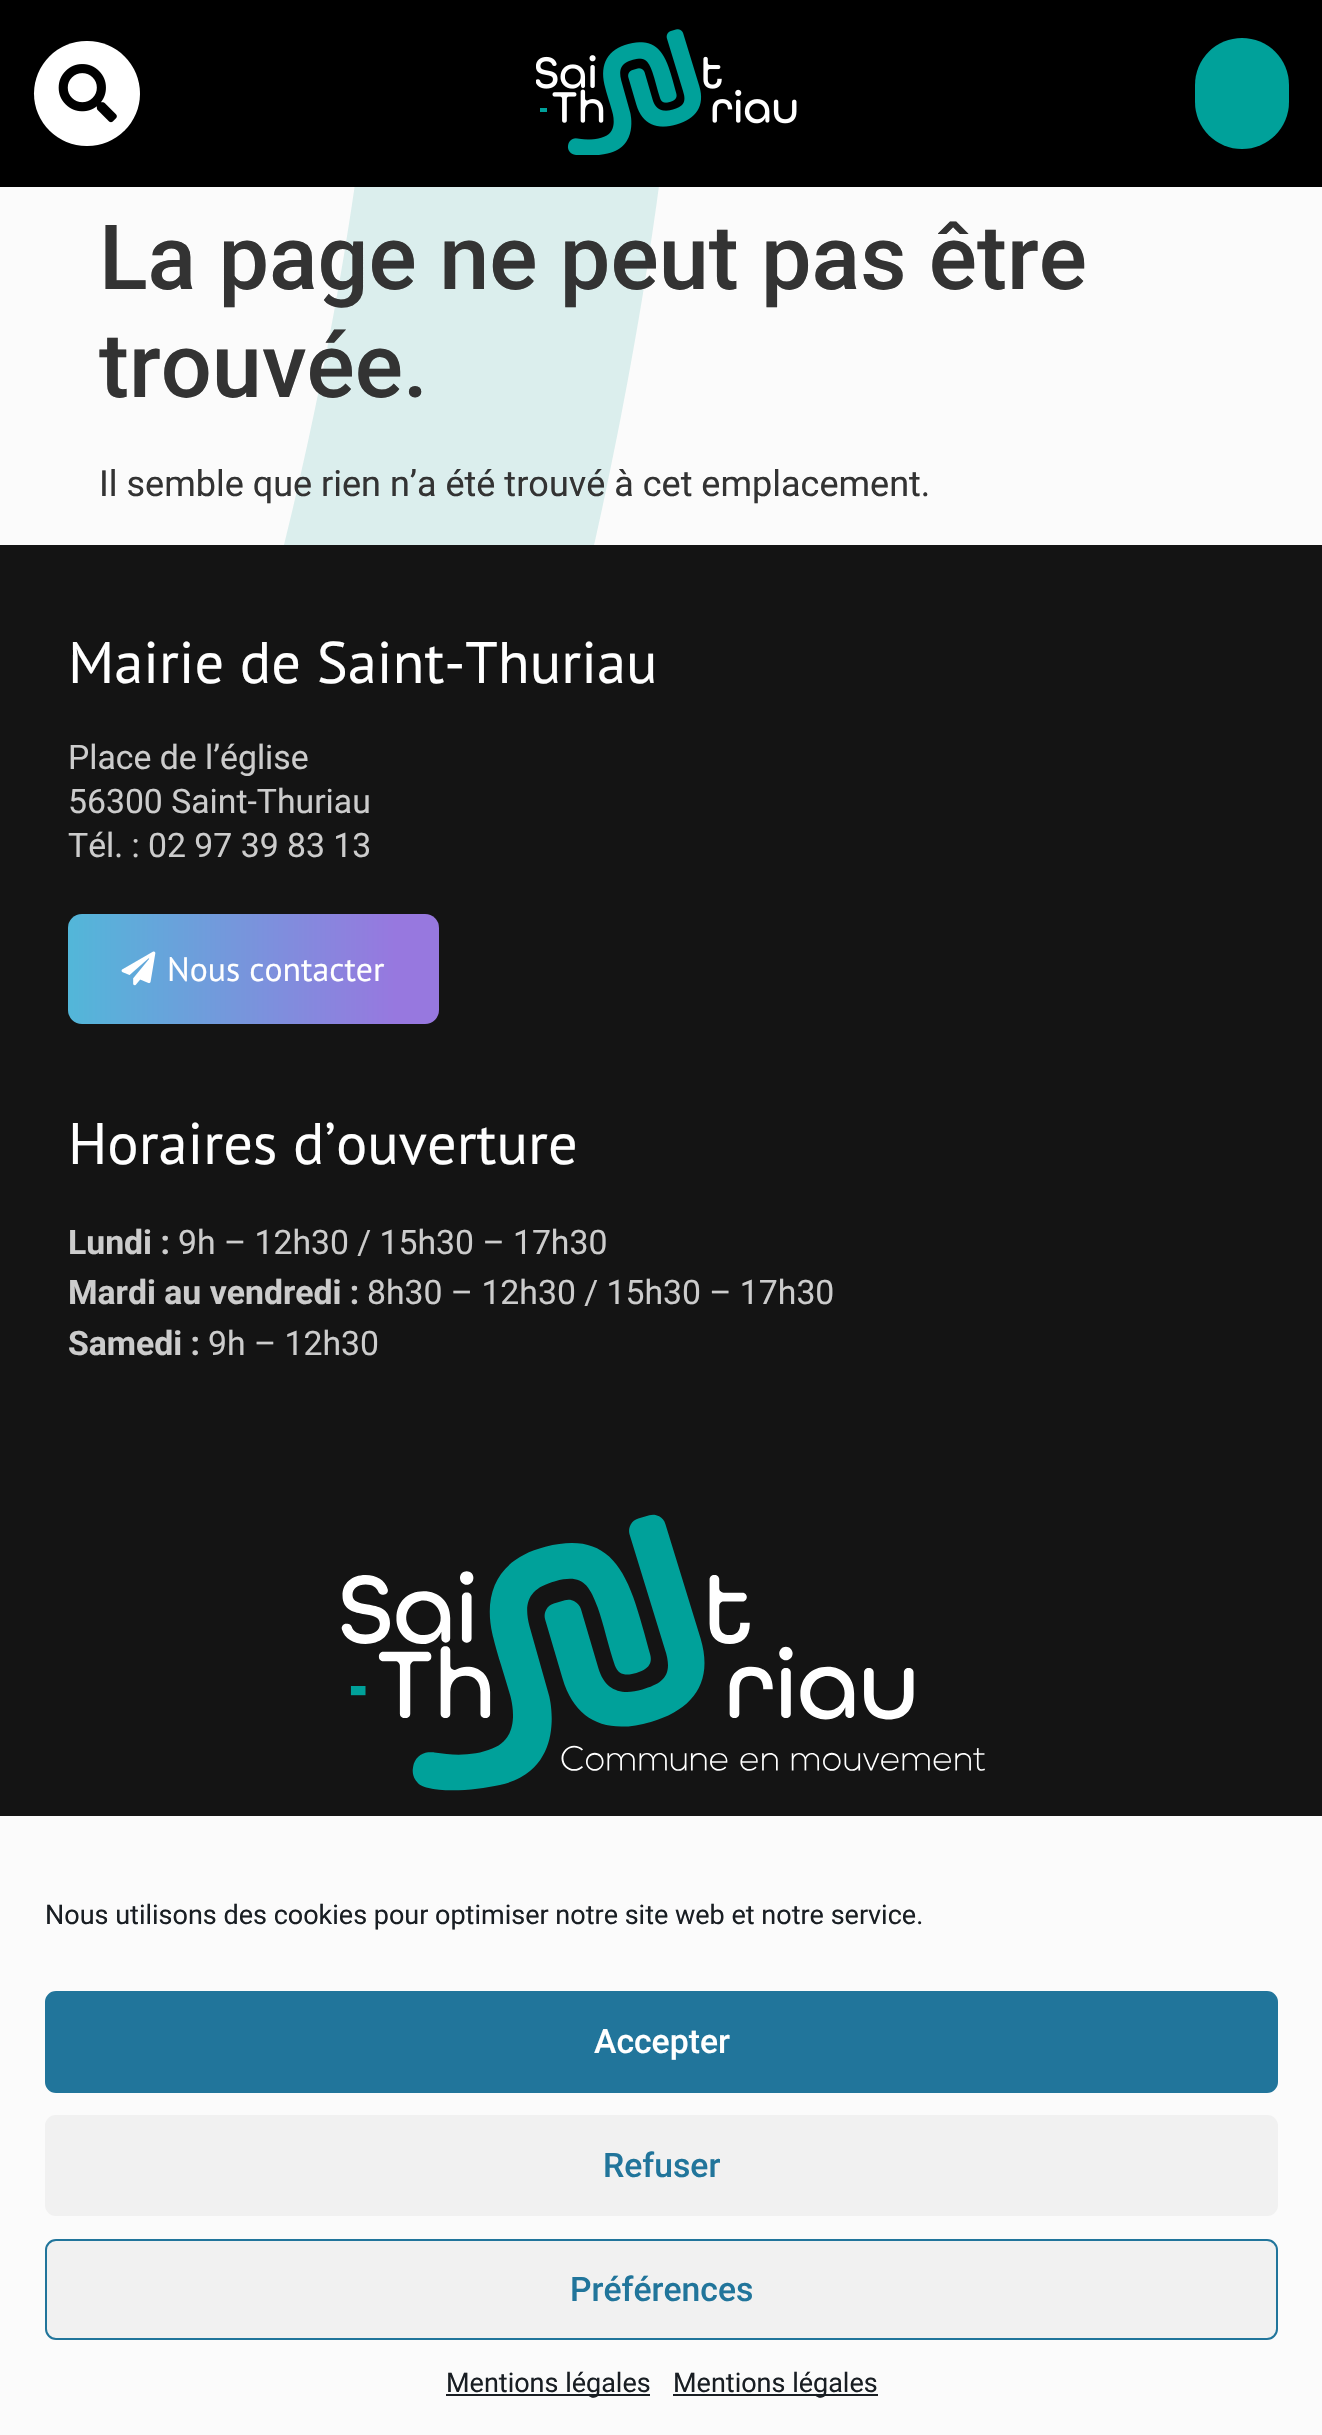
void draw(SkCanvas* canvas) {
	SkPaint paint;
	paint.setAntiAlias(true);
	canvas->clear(0xfffbfbfb);
	canvas->drawImageRect(SkImages::DeferredFromEncodedData(SkData::MakeFromFileName("img1.png")), SkRect::MakeXYWH(284, 187, 375, 358), SkSamplingOptions());
	paint.setColor(0xff000000);
	canvas->drawRect(SkRect::MakeXYWH(0, 0, 1322, 187), paint);
	paint.setColor(0xffffffff);
	canvas->drawRoundRect(SkRect::MakeXYWH(34, 41, 106, 105), 52.5, 52.5, paint);
	canvas->drawImageRect(SkImages::DeferredFromEncodedData(SkData::MakeFromFileName("img2.png")), SkRect::MakeXYWH(58, 64, 59, 59), SkSamplingOptions());
	canvas->drawImageRect(SkImages::DeferredFromEncodedData(SkData::MakeFromFileName("img3.png")), SkRect::MakeXYWH(536, 29, 261, 126), SkSamplingOptions());
	paint.setColor(0xff00a19a);
	canvas->drawRoundRect(SkRect::MakeXYWH(1195, 38, 94, 111), 47, 47, paint);
	SkFont f1(fontMgr->matchFamilyStyle("Roboto", SkFontStyle(500, SkFontStyle::kNormal_Width, SkFontStyle::kUpright_Slant)), 90);
	f1.setSubpixel(true);
	paint.setColor(0xff333333);
	canvas->drawString("La page ne peut pas être", 99, 289, f1, paint);
	canvas->drawString("trouvée.", 99, 397, f1, paint);
	SkFont f2(fontMgr->matchFamilyStyle("Roboto", SkFontStyle::Normal()), 36);
	f2.setSubpixel(true);
	canvas->drawString("Il semble que rien n’a été trouvé à cet emplacement.", 99, 496, f2, paint);
	paint.setColor(0xff141414);
	canvas->drawRect(SkRect::MakeXYWH(0, 545, 1322, 1271), paint);
	SkFont f3(fontMgr->matchFamilyStyle("PT Sans", SkFontStyle::Normal()), 58.5);
	f3.setSubpixel(true);
	paint.setColor(0xffffffff);
	canvas->drawString("Mairie de Saint-Thuriau", 68, 683, f3, paint);
	SkFont f4(fontMgr->matchFamilyStyle("Roboto", SkFontStyle::Normal()), 33.75);
	f4.setSubpixel(true);
	paint.setColor(0xffcccccc);
	canvas->drawString("Place de l’église", 68, 769, f4, paint);
	canvas->drawString("56300 Saint-Thuriau", 68, 813, f4, paint);
	canvas->drawString("Tél. : 02 97 39 83 13", 68, 857, f4, paint);
	{
		const SkColor colors[] = {0xff3bccd7, 0xff9778df, 0xff9778df};
		const float stops[] = {0, 0.74, 1};
		const SkPoint ends[] = {{-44, 969}, {550, 969}};
		paint.setShader(SkGradientShader::MakeLinear(ends, colors, stops, 3, SkTileMode::kClamp));
		paint.setAlpha(255);
	}
	canvas->drawRoundRect(SkRect::MakeXYWH(68, 914, 371, 110), 14, 14, paint);
	canvas->drawImageRect(SkImages::DeferredFromEncodedData(SkData::MakeFromFileName("img4.png")), SkRect::MakeXYWH(121, 951, 35, 35), SkSamplingOptions());
	SkFont f5(fontMgr->matchFamilyStyle("PT Sans", SkFontStyle::Normal()), 33.75);
	f5.setSubpixel(true);
	paint.setShader(nullptr);
	paint.setColor(0xffffffff);
	canvas->drawString("Nous contacter", 167, 981, f5, paint);
	canvas->drawString("Horaires d’ouverture", 68, 1164, f3, paint);
	SkFont f6(fontMgr->matchFamilyStyle("Roboto", SkFontStyle::Bold()), 33.75);
	f6.setSubpixel(true);
	paint.setColor(0xffcccccc);
	canvas->drawString("Lundi :", 68, 1254, f6, paint);
	canvas->drawString("9h – 12h30 / 15h30 – 17h30", 178, 1254, f4, paint);
	canvas->drawString("Mardi au vendredi :", 68, 1304, f6, paint);
	canvas->drawString("8h30 – 12h30 / 15h30 – 17h30", 367, 1304, f4, paint);
	canvas->drawString("Samedi :", 68, 1355, f6, paint);
	canvas->drawString("9h – 12h30", 208, 1355, f4, paint);
	canvas->drawImageRect(SkImages::DeferredFromEncodedData(SkData::MakeFromFileName("img5.png")), SkRect::MakeXYWH(341, 1514, 644, 277), SkSamplingOptions());
	SkFont f7(fontMgr->matchFamilyStyle("Roboto", SkFontStyle::Normal()), 27);
	f7.setSubpixel(true);
	paint.setColor(0xff191e23);
	canvas->drawString("Nous utilisons des cookies pour optimiser notre site web et notre service.", 45, 1924, f7, paint);
	paint.setColor(0xff21759b);
	canvas->drawRoundRect(SkRect::MakeXYWH(46, 1992, 1231, 100), 10, 10, paint);
	paint.setStroke(true);
	paint.setStrokeWidth(2);
	canvas->drawRoundRect(SkRect::MakeXYWH(46, 1992, 1231, 100), 10, 10, paint);
	SkFont f8(fontMgr->matchFamilyStyle("Roboto", SkFontStyle(500, SkFontStyle::kNormal_Width, SkFontStyle::kUpright_Slant)), 33.75);
	f8.setSubpixel(true);
	paint.setStroke(false);
	paint.setColor(0xffffffff);
	canvas->drawString("Accepter", 594, 2053, f8, paint);
	paint.setColor(0xfff1f1f1);
	canvas->drawRoundRect(SkRect::MakeXYWH(45, 2115, 1233, 101), 11, 11, paint);
	paint.setColor(0xff21759b);
	canvas->drawString("Refuser", 603, 2177, f8, paint);
	paint.setColor(0xfff1f1f1);
	canvas->drawRoundRect(SkRect::MakeXYWH(46, 2240, 1231, 99), 10, 10, paint);
	paint.setStroke(true);
	paint.setColor(0xff21759b);
	canvas->drawRoundRect(SkRect::MakeXYWH(46, 2240, 1231, 99), 10, 10, paint);
	paint.setStroke(false);
	canvas->drawString("Préférences", 570, 2301, f8, paint);
	paint.setColor(0xff191e23);
	canvas->drawRect(SkRect::MakeXYWH(446, 2394, 204, 2), paint);
	canvas->drawString("Mentions légales", 446, 2392, f7, paint);
	canvas->drawRect(SkRect::MakeXYWH(673, 2394, 205, 2), paint);
	canvas->drawString("Mentions légales", 673, 2392, f7, paint);
}
